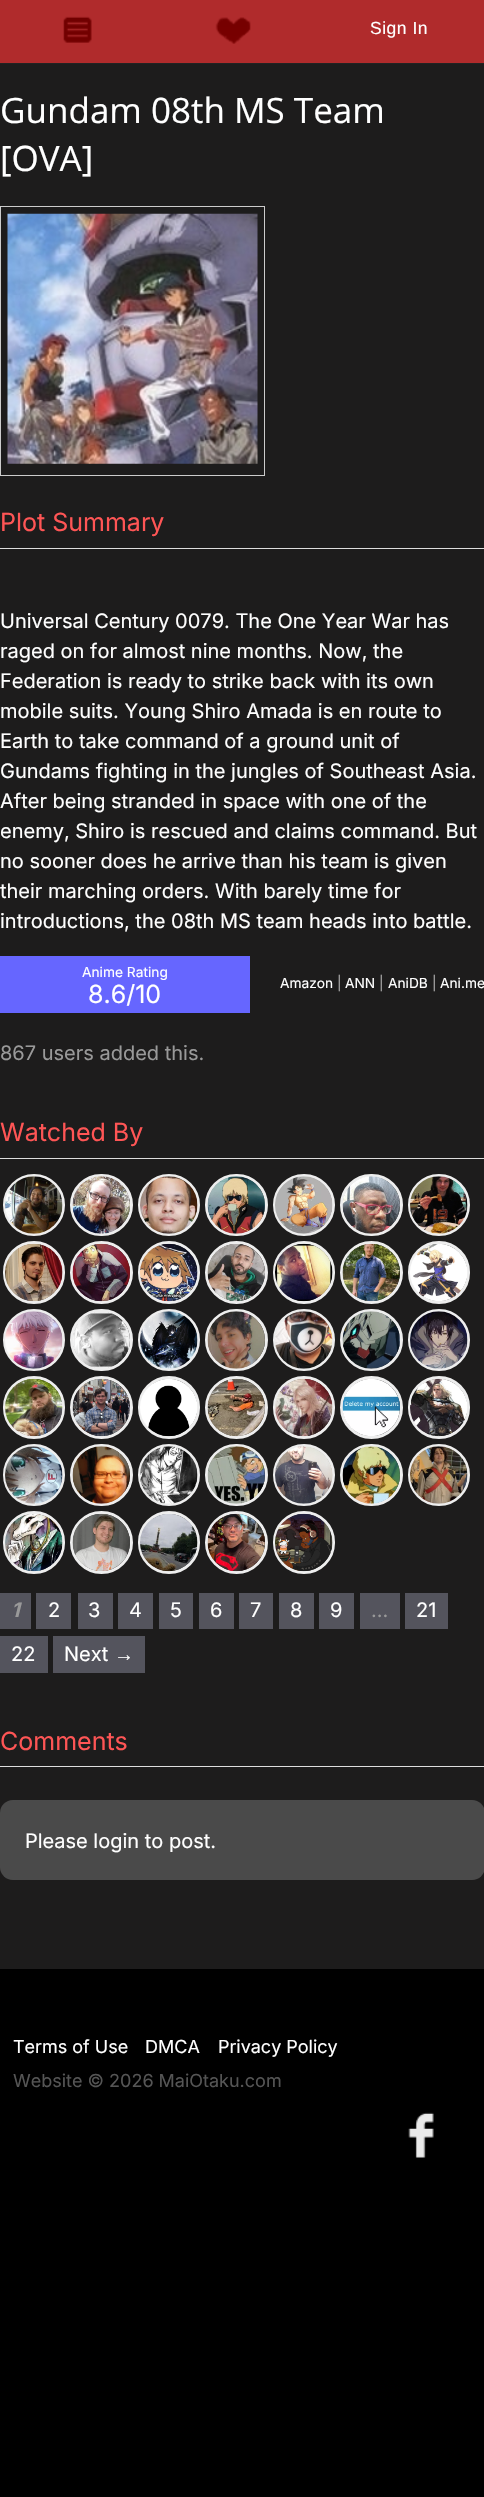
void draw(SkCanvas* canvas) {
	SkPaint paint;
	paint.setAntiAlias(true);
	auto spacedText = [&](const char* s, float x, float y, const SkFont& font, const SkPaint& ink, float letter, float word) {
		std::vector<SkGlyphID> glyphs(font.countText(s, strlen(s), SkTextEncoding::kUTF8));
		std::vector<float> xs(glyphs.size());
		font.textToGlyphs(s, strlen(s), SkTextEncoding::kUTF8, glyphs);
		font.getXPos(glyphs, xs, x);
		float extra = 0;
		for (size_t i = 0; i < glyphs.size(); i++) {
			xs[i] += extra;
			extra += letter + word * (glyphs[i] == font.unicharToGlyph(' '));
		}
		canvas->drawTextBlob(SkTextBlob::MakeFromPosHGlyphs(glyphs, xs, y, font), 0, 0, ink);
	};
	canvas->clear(0xff000000);
	paint.setColor(0xffb02b2c);
	canvas->drawRect(SkRect::MakeXYWH(0, 0, 484, 63), paint);
	paint.setColor(0xff222222);
	canvas->drawRect(SkRect::MakeXYWH(0, 63, 484, 1), paint);
	canvas->drawImageRect(SkImages::DeferredFromEncodedData(SkData::MakeFromFileName("img1.png")), SkRect::MakeXYWH(63, 16, 29, 27), SkSamplingOptions());
	canvas->drawImageRect(SkImages::DeferredFromEncodedData(SkData::MakeFromFileName("img2.png")), SkRect::MakeXYWH(215, 17, 36, 27), SkSamplingOptions());
	SkFont f1(fontMgr->matchFamilyStyle("Liberation Sans", SkFontStyle::Normal()), 17.5);
	f1.setSubpixel(true);
	paint.setColor(0xffffffff);
	spacedText("Sign In", 370, 34, f1, paint, 0.5, 0);
	paint.setColor(0xff1d1c1c);
	canvas->drawRect(SkRect::MakeXYWH(0, 64, 484, 1905), paint);
	SkFont f2(fontMgr->matchFamilyStyle("Open Sans", SkFontStyle::Normal()), 35);
	f2.setSubpixel(true);
	paint.setColor(0xffffffff);
	canvas->drawString("Gundam 08th MS Team", 0, 123, f2, paint);
	canvas->drawString("[OVA]", 0, 171, f2, paint);
	paint.setStroke(true);
	paint.setStrokeWidth(1);
	paint.setColor(0xffcccccc);
	canvas->drawRect(SkRect::MakeXYWH(0.5, 206.5, 264, 269), paint);
	canvas->drawImageRect(SkImages::DeferredFromEncodedData(SkData::MakeFromFileName("img3.png")), SkRect::MakeXYWH(7, 213, 251, 251), SkSamplingOptions());
	paint.setStroke(false);
	paint.setColor(0xffdddddd);
	canvas->drawRect(SkRect::MakeXYWH(0, 548, 484, 1), paint);
	SkFont f3(fontMgr->matchFamilyStyle("Inter", SkFontStyle::Normal()), 25);
	f3.setSubpixel(true);
	paint.setColor(0xffff5555);
	canvas->drawString("Plot Summary", 0, 531, f3, paint);
	SkFont f4(fontMgr->matchFamilyStyle("Inter", SkFontStyle::Normal()), 20);
	f4.setSubpixel(true);
	paint.setColor(0xffffffff);
	canvas->drawString("Universal Century 0079. The One Year War has", 0, 628, f4, paint);
	canvas->drawString("raged on for almost nine months. Now, the", 0, 658, f4, paint);
	canvas->drawString("Federation is ready to strike back with its own", 0, 688, f4, paint);
	canvas->drawString("mobile suits. Young Shiro Amada is en route to", 0, 718, f4, paint);
	canvas->drawString("Earth to take command of a ground unit of", 0, 748, f4, paint);
	canvas->drawString("Gundams fighting in the jungles of Southeast Asia.", 0, 778, f4, paint);
	canvas->drawString("After being stranded in space with one of the", 0, 808, f4, paint);
	canvas->drawString("enemy, Shiro is rescued and claims command. But", 0, 838, f4, paint);
	canvas->drawString("no sooner does he arrive than his team is given", 0, 868, f4, paint);
	canvas->drawString("their marching orders. With barely time for", 0, 898, f4, paint);
	canvas->drawString("introductions, the 08th MS team heads into battle.", 0, 928, f4, paint);
	paint.setColor(0xff6666ff);
	canvas->drawRect(SkRect::MakeXYWH(0, 956, 250, 57), paint);
	SkFont f5(fontMgr->matchFamilyStyle("Inter", SkFontStyle::Normal()), 13.75);
	f5.setSubpixel(true);
	paint.setColor(0xffffffff);
	canvas->drawString("Anime Rating", 82, 977, f5, paint);
	canvas->drawString("8.6/10", 88, 1003, f3, paint);
	canvas->drawString("Amazon", 280, 988, f5, paint);
	paint.setColor(0xffaaaaaa);
	canvas->drawString("|", 337, 988, f5, paint);
	paint.setColor(0xffffffff);
	canvas->drawString("ANN", 345, 988, f5, paint);
	paint.setColor(0xffaaaaaa);
	canvas->drawString("|", 379, 988, f5, paint);
	paint.setColor(0xffffffff);
	canvas->drawString("AniDB", 388, 988, f5, paint);
	paint.setColor(0xffaaaaaa);
	canvas->drawString("|", 432, 988, f5, paint);
	paint.setColor(0xffffffff);
	canvas->drawString("Ani.me", 440, 988, f5, paint);
	paint.setColor(0xff999999);
	canvas->drawString("867 users added this.", 0, 1060, f4, paint);
	paint.setColor(0xffdddddd);
	canvas->drawRect(SkRect::MakeXYWH(0, 1158, 484, 1), paint);
	paint.setColor(0xffff5555);
	canvas->drawString("Watched By", 0, 1141, f3, paint);
	paint.setStroke(true);
	paint.setStrokeWidth(3);
	paint.setColor(0xffeeeeee);
	canvas->drawCircle(34, 1205, 29.5, paint);
	canvas->drawImageRect(SkImages::DeferredFromEncodedData(SkData::MakeFromFileName("img4.png")), SkRect::MakeXYWH(5, 1176, 58, 58), SkSamplingOptions());
	canvas->drawRoundRect(SkRect::MakeXYWH(71.5, 1175.5, 60, 59), 29.5, 29.5, paint);
	canvas->drawImageRect(SkImages::DeferredFromEncodedData(SkData::MakeFromFileName("img5.png")), SkRect::MakeXYWH(72, 1176, 58, 58), SkSamplingOptions());
	canvas->drawCircle(169, 1205, 29.5, paint);
	canvas->drawImageRect(SkImages::DeferredFromEncodedData(SkData::MakeFromFileName("img6.png")), SkRect::MakeXYWH(140, 1176, 58, 58), SkSamplingOptions());
	canvas->drawRoundRect(SkRect::MakeXYWH(206.5, 1175.5, 60, 59), 29.5, 29.5, paint);
	canvas->drawImageRect(SkImages::DeferredFromEncodedData(SkData::MakeFromFileName("img7.png")), SkRect::MakeXYWH(207, 1176, 58, 58), SkSamplingOptions());
	canvas->drawCircle(304, 1205, 29.5, paint);
	canvas->drawImageRect(SkImages::DeferredFromEncodedData(SkData::MakeFromFileName("img8.png")), SkRect::MakeXYWH(275, 1176, 58, 58), SkSamplingOptions());
	canvas->drawRoundRect(SkRect::MakeXYWH(341.5, 1175.5, 60, 59), 29.5, 29.5, paint);
	canvas->drawImageRect(SkImages::DeferredFromEncodedData(SkData::MakeFromFileName("img9.png")), SkRect::MakeXYWH(342, 1176, 58, 58), SkSamplingOptions());
	canvas->drawCircle(439, 1205, 29.5, paint);
	canvas->drawImageRect(SkImages::DeferredFromEncodedData(SkData::MakeFromFileName("img10.png")), SkRect::MakeXYWH(410, 1176, 58, 58), SkSamplingOptions());
	canvas->drawRoundRect(SkRect::MakeXYWH(4.5, 1242.5, 59, 60), 29.5, 29.5, paint);
	canvas->drawImageRect(SkImages::DeferredFromEncodedData(SkData::MakeFromFileName("img11.png")), SkRect::MakeXYWH(5, 1243, 58, 59), SkSamplingOptions());
	canvas->drawCircle(101.5, 1272.5, 30, paint);
	canvas->drawImageRect(SkImages::DeferredFromEncodedData(SkData::MakeFromFileName("img12.png")), SkRect::MakeXYWH(72, 1243, 58, 59), SkSamplingOptions());
	canvas->drawRoundRect(SkRect::MakeXYWH(139.5, 1242.5, 59, 60), 29.5, 29.5, paint);
	canvas->drawImageRect(SkImages::DeferredFromEncodedData(SkData::MakeFromFileName("img13.png")), SkRect::MakeXYWH(140, 1243, 58, 59), SkSamplingOptions());
	canvas->drawCircle(236.5, 1272.5, 30, paint);
	canvas->drawImageRect(SkImages::DeferredFromEncodedData(SkData::MakeFromFileName("img14.png")), SkRect::MakeXYWH(207, 1244, 58, 58), SkSamplingOptions());
	canvas->drawRoundRect(SkRect::MakeXYWH(274.5, 1242.5, 59, 60), 29.5, 29.5, paint);
	canvas->drawImageRect(SkImages::DeferredFromEncodedData(SkData::MakeFromFileName("img15.png")), SkRect::MakeXYWH(275, 1243, 58, 59), SkSamplingOptions());
	canvas->drawCircle(371.5, 1272.5, 30, paint);
	canvas->drawImageRect(SkImages::DeferredFromEncodedData(SkData::MakeFromFileName("img16.png")), SkRect::MakeXYWH(342, 1243, 58, 59), SkSamplingOptions());
	canvas->drawRoundRect(SkRect::MakeXYWH(409.5, 1242.5, 59, 60), 29.5, 29.5, paint);
	canvas->drawImageRect(SkImages::DeferredFromEncodedData(SkData::MakeFromFileName("img17.png")), SkRect::MakeXYWH(410, 1244, 58, 57), SkSamplingOptions());
	canvas->drawCircle(34, 1340, 29.5, paint);
	canvas->drawImageRect(SkImages::DeferredFromEncodedData(SkData::MakeFromFileName("img18.png")), SkRect::MakeXYWH(5, 1311, 58, 58), SkSamplingOptions());
	canvas->drawRoundRect(SkRect::MakeXYWH(71.5, 1310.5, 60, 59), 29.5, 29.5, paint);
	canvas->drawImageRect(SkImages::DeferredFromEncodedData(SkData::MakeFromFileName("img19.png")), SkRect::MakeXYWH(73, 1312, 57, 56), SkSamplingOptions());
	canvas->drawCircle(169, 1340, 29.5, paint);
	canvas->drawImageRect(SkImages::DeferredFromEncodedData(SkData::MakeFromFileName("img20.png")), SkRect::MakeXYWH(140, 1311, 58, 58), SkSamplingOptions());
	canvas->drawRoundRect(SkRect::MakeXYWH(206.5, 1310.5, 60, 59), 29.5, 29.5, paint);
	canvas->drawImageRect(SkImages::DeferredFromEncodedData(SkData::MakeFromFileName("img21.png")), SkRect::MakeXYWH(207, 1311, 58, 58), SkSamplingOptions());
	canvas->drawCircle(304, 1340, 29.5, paint);
	canvas->drawImageRect(SkImages::DeferredFromEncodedData(SkData::MakeFromFileName("img22.png")), SkRect::MakeXYWH(275, 1311, 58, 58), SkSamplingOptions());
	canvas->drawRoundRect(SkRect::MakeXYWH(341.5, 1310.5, 60, 59), 29.5, 29.5, paint);
	canvas->drawImageRect(SkImages::DeferredFromEncodedData(SkData::MakeFromFileName("img23.png")), SkRect::MakeXYWH(342, 1311, 58, 58), SkSamplingOptions());
	canvas->drawCircle(439, 1340, 29.5, paint);
	canvas->drawImageRect(SkImages::DeferredFromEncodedData(SkData::MakeFromFileName("img24.png")), SkRect::MakeXYWH(410, 1311, 58, 58), SkSamplingOptions());
	canvas->drawRoundRect(SkRect::MakeXYWH(4.5, 1377.5, 59, 60), 29.5, 29.5, paint);
	canvas->drawImageRect(SkImages::DeferredFromEncodedData(SkData::MakeFromFileName("img25.png")), SkRect::MakeXYWH(5, 1378, 58, 59), SkSamplingOptions());
	canvas->drawCircle(101.5, 1407.5, 30, paint);
	canvas->drawImageRect(SkImages::DeferredFromEncodedData(SkData::MakeFromFileName("img26.png")), SkRect::MakeXYWH(72, 1378, 58, 59), SkSamplingOptions());
	canvas->drawRoundRect(SkRect::MakeXYWH(139.5, 1377.5, 59, 60), 29.5, 29.5, paint);
	canvas->drawImageRect(SkImages::DeferredFromEncodedData(SkData::MakeFromFileName("img27.png")), SkRect::MakeXYWH(140, 1379, 58, 58), SkSamplingOptions());
	canvas->drawCircle(236.5, 1407.5, 30, paint);
	canvas->drawImageRect(SkImages::DeferredFromEncodedData(SkData::MakeFromFileName("img28.png")), SkRect::MakeXYWH(207, 1378, 58, 59), SkSamplingOptions());
	canvas->drawRoundRect(SkRect::MakeXYWH(274.5, 1377.5, 59, 60), 29.5, 29.5, paint);
	canvas->drawImageRect(SkImages::DeferredFromEncodedData(SkData::MakeFromFileName("img29.png")), SkRect::MakeXYWH(275, 1378, 58, 59), SkSamplingOptions());
	canvas->drawCircle(371.5, 1407.5, 30, paint);
	canvas->drawImageRect(SkImages::DeferredFromEncodedData(SkData::MakeFromFileName("img30.png")), SkRect::MakeXYWH(342, 1379, 58, 57), SkSamplingOptions());
	canvas->drawRoundRect(SkRect::MakeXYWH(409.5, 1377.5, 59, 60), 29.5, 29.5, paint);
	canvas->drawImageRect(SkImages::DeferredFromEncodedData(SkData::MakeFromFileName("img31.png")), SkRect::MakeXYWH(410, 1378, 58, 59), SkSamplingOptions());
	canvas->drawCircle(34, 1475, 29.5, paint);
	canvas->drawImageRect(SkImages::DeferredFromEncodedData(SkData::MakeFromFileName("img32.png")), SkRect::MakeXYWH(5, 1446, 58, 58), SkSamplingOptions());
	canvas->drawRoundRect(SkRect::MakeXYWH(71.5, 1445.5, 60, 59), 29.5, 29.5, paint);
	canvas->drawImageRect(SkImages::DeferredFromEncodedData(SkData::MakeFromFileName("img33.png")), SkRect::MakeXYWH(72, 1446, 58, 58), SkSamplingOptions());
	canvas->drawCircle(169, 1475, 29.5, paint);
	canvas->drawImageRect(SkImages::DeferredFromEncodedData(SkData::MakeFromFileName("img34.png")), SkRect::MakeXYWH(140, 1446, 58, 58), SkSamplingOptions());
	canvas->drawRoundRect(SkRect::MakeXYWH(206.5, 1445.5, 60, 59), 29.5, 29.5, paint);
	canvas->drawImageRect(SkImages::DeferredFromEncodedData(SkData::MakeFromFileName("img35.png")), SkRect::MakeXYWH(207, 1446, 58, 58), SkSamplingOptions());
	canvas->drawCircle(304, 1475, 29.5, paint);
	canvas->drawImageRect(SkImages::DeferredFromEncodedData(SkData::MakeFromFileName("img36.png")), SkRect::MakeXYWH(275, 1446, 58, 58), SkSamplingOptions());
	canvas->drawRoundRect(SkRect::MakeXYWH(341.5, 1445.5, 60, 59), 29.5, 29.5, paint);
	canvas->drawImageRect(SkImages::DeferredFromEncodedData(SkData::MakeFromFileName("img37.png")), SkRect::MakeXYWH(342, 1446, 58, 58), SkSamplingOptions());
	canvas->drawCircle(439, 1475, 29.5, paint);
	canvas->drawImageRect(SkImages::DeferredFromEncodedData(SkData::MakeFromFileName("img38.png")), SkRect::MakeXYWH(410, 1446, 58, 58), SkSamplingOptions());
	canvas->drawRoundRect(SkRect::MakeXYWH(4.5, 1512.5, 59, 60), 29.5, 29.5, paint);
	canvas->drawImageRect(SkImages::DeferredFromEncodedData(SkData::MakeFromFileName("img39.png")), SkRect::MakeXYWH(5, 1514, 58, 58), SkSamplingOptions());
	canvas->drawCircle(101.5, 1542.5, 30, paint);
	canvas->drawImageRect(SkImages::DeferredFromEncodedData(SkData::MakeFromFileName("img40.png")), SkRect::MakeXYWH(72, 1513, 58, 58), SkSamplingOptions());
	canvas->drawRoundRect(SkRect::MakeXYWH(139.5, 1512.5, 59, 60), 29.5, 29.5, paint);
	canvas->drawImageRect(SkImages::DeferredFromEncodedData(SkData::MakeFromFileName("img41.png")), SkRect::MakeXYWH(140, 1514, 58, 58), SkSamplingOptions());
	canvas->drawCircle(236.5, 1542.5, 30, paint);
	canvas->drawImageRect(SkImages::DeferredFromEncodedData(SkData::MakeFromFileName("img42.png")), SkRect::MakeXYWH(207, 1513, 58, 59), SkSamplingOptions());
	canvas->drawRoundRect(SkRect::MakeXYWH(274.5, 1512.5, 59, 60), 29.5, 29.5, paint);
	canvas->drawImageRect(SkImages::DeferredFromEncodedData(SkData::MakeFromFileName("img43.png")), SkRect::MakeXYWH(275, 1513, 58, 59), SkSamplingOptions());
	paint.setStroke(false);
	paint.setColor(0xff54545d);
	canvas->drawRect(SkRect::MakeXYWH(0, 1593, 31, 36), paint);
	SkFont f6(fontMgr->matchFamilyStyle("Inter", SkFontStyle::BoldItalic()), 20);
	f6.setSubpixel(true);
	paint.setColor(0xff999999);
	canvas->drawString("1", 11, 1617, f6, paint);
	paint.setColor(0xff54545d);
	canvas->drawRect(SkRect::MakeXYWH(36, 1593, 35, 36), paint);
	paint.setColor(0xffffffff);
	canvas->drawString("2", 48, 1617, f4, paint);
	paint.setColor(0xff54545d);
	canvas->drawRect(SkRect::MakeXYWH(78, 1593, 35, 36), paint);
	paint.setColor(0xffffffff);
	canvas->drawString("3", 88, 1617, f4, paint);
	paint.setColor(0xff54545d);
	canvas->drawRect(SkRect::MakeXYWH(118, 1593, 35, 36), paint);
	paint.setColor(0xffffffff);
	canvas->drawString("4", 129, 1617, f4, paint);
	paint.setColor(0xff54545d);
	canvas->drawRect(SkRect::MakeXYWH(159, 1593, 34, 36), paint);
	paint.setColor(0xffffffff);
	canvas->drawString("5", 170, 1617, f4, paint);
	paint.setColor(0xff54545d);
	canvas->drawRect(SkRect::MakeXYWH(199, 1593, 35, 36), paint);
	paint.setColor(0xffffffff);
	canvas->drawString("6", 210, 1617, f4, paint);
	paint.setColor(0xff54545d);
	canvas->drawRect(SkRect::MakeXYWH(239, 1593, 34, 36), paint);
	paint.setColor(0xffffffff);
	canvas->drawString("7", 250, 1617, f4, paint);
	paint.setColor(0xff54545d);
	canvas->drawRect(SkRect::MakeXYWH(279, 1593, 35, 36), paint);
	paint.setColor(0xffffffff);
	canvas->drawString("8", 290, 1617, f4, paint);
	paint.setColor(0xff54545d);
	canvas->drawRect(SkRect::MakeXYWH(319, 1593, 35, 36), paint);
	paint.setColor(0xffffffff);
	canvas->drawString("9", 330, 1617, f4, paint);
	paint.setColor(0xff54545d);
	canvas->drawRect(SkRect::MakeXYWH(360, 1593, 40, 36), paint);
	paint.setColor(0xff999999);
	canvas->drawString("…", 371, 1617, f4, paint);
	paint.setColor(0xff54545d);
	canvas->drawRect(SkRect::MakeXYWH(405, 1593, 43, 36), paint);
	paint.setColor(0xffffffff);
	canvas->drawString("21", 416, 1617, f4, paint);
	paint.setColor(0xff54545d);
	canvas->drawRect(SkRect::MakeXYWH(0, 1636, 48, 37), paint);
	paint.setColor(0xffffffff);
	canvas->drawString("22", 11, 1661, f4, paint);
	paint.setColor(0xff54545d);
	canvas->drawRect(SkRect::MakeXYWH(53, 1636, 92, 37), paint);
	paint.setColor(0xffffffff);
	canvas->drawString("Next", 64, 1661, f4, paint);
	SkFont f7(fontMgr->matchFamilyStyle("Liberation Sans", SkFontStyle::Normal()), 20);
	f7.setSubpixel(true);
	canvas->drawString("→", 114, 1661, f7, paint);
	paint.setColor(0xffdddddd);
	canvas->drawRect(SkRect::MakeXYWH(0, 1766, 484, 1), paint);
	paint.setColor(0xffff5555);
	canvas->drawString("Comments", 0, 1750, f3, paint);
	paint.setColor(0xff4a4a4a);
	canvas->drawRoundRect(SkRect::MakeXYWH(0, 1800, 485, 80), 13, 13, paint);
	paint.setColor(0xffffffff);
	canvas->drawString("Please login to post.", 25, 1848, f4, paint);
	SkFont f8(fontMgr->matchFamilyStyle("Inter", SkFontStyle::Normal()), 18);
	f8.setSubpixel(true);
	canvas->drawString("Terms of Use", 13, 2053, f8, paint);
	canvas->drawString("DMCA", 145, 2053, f8, paint);
	canvas->drawString("Privacy Policy", 218, 2053, f8, paint);
	paint.setColor(0xff555555);
	canvas->drawString("Website © 2026 MaiOtaku.com", 13, 2087, f8, paint);
	canvas->drawImageRect(SkImages::DeferredFromEncodedData(SkData::MakeFromFileName("img44.png")), SkRect::MakeXYWH(408, 2112, 26, 46), SkSamplingOptions());
}
